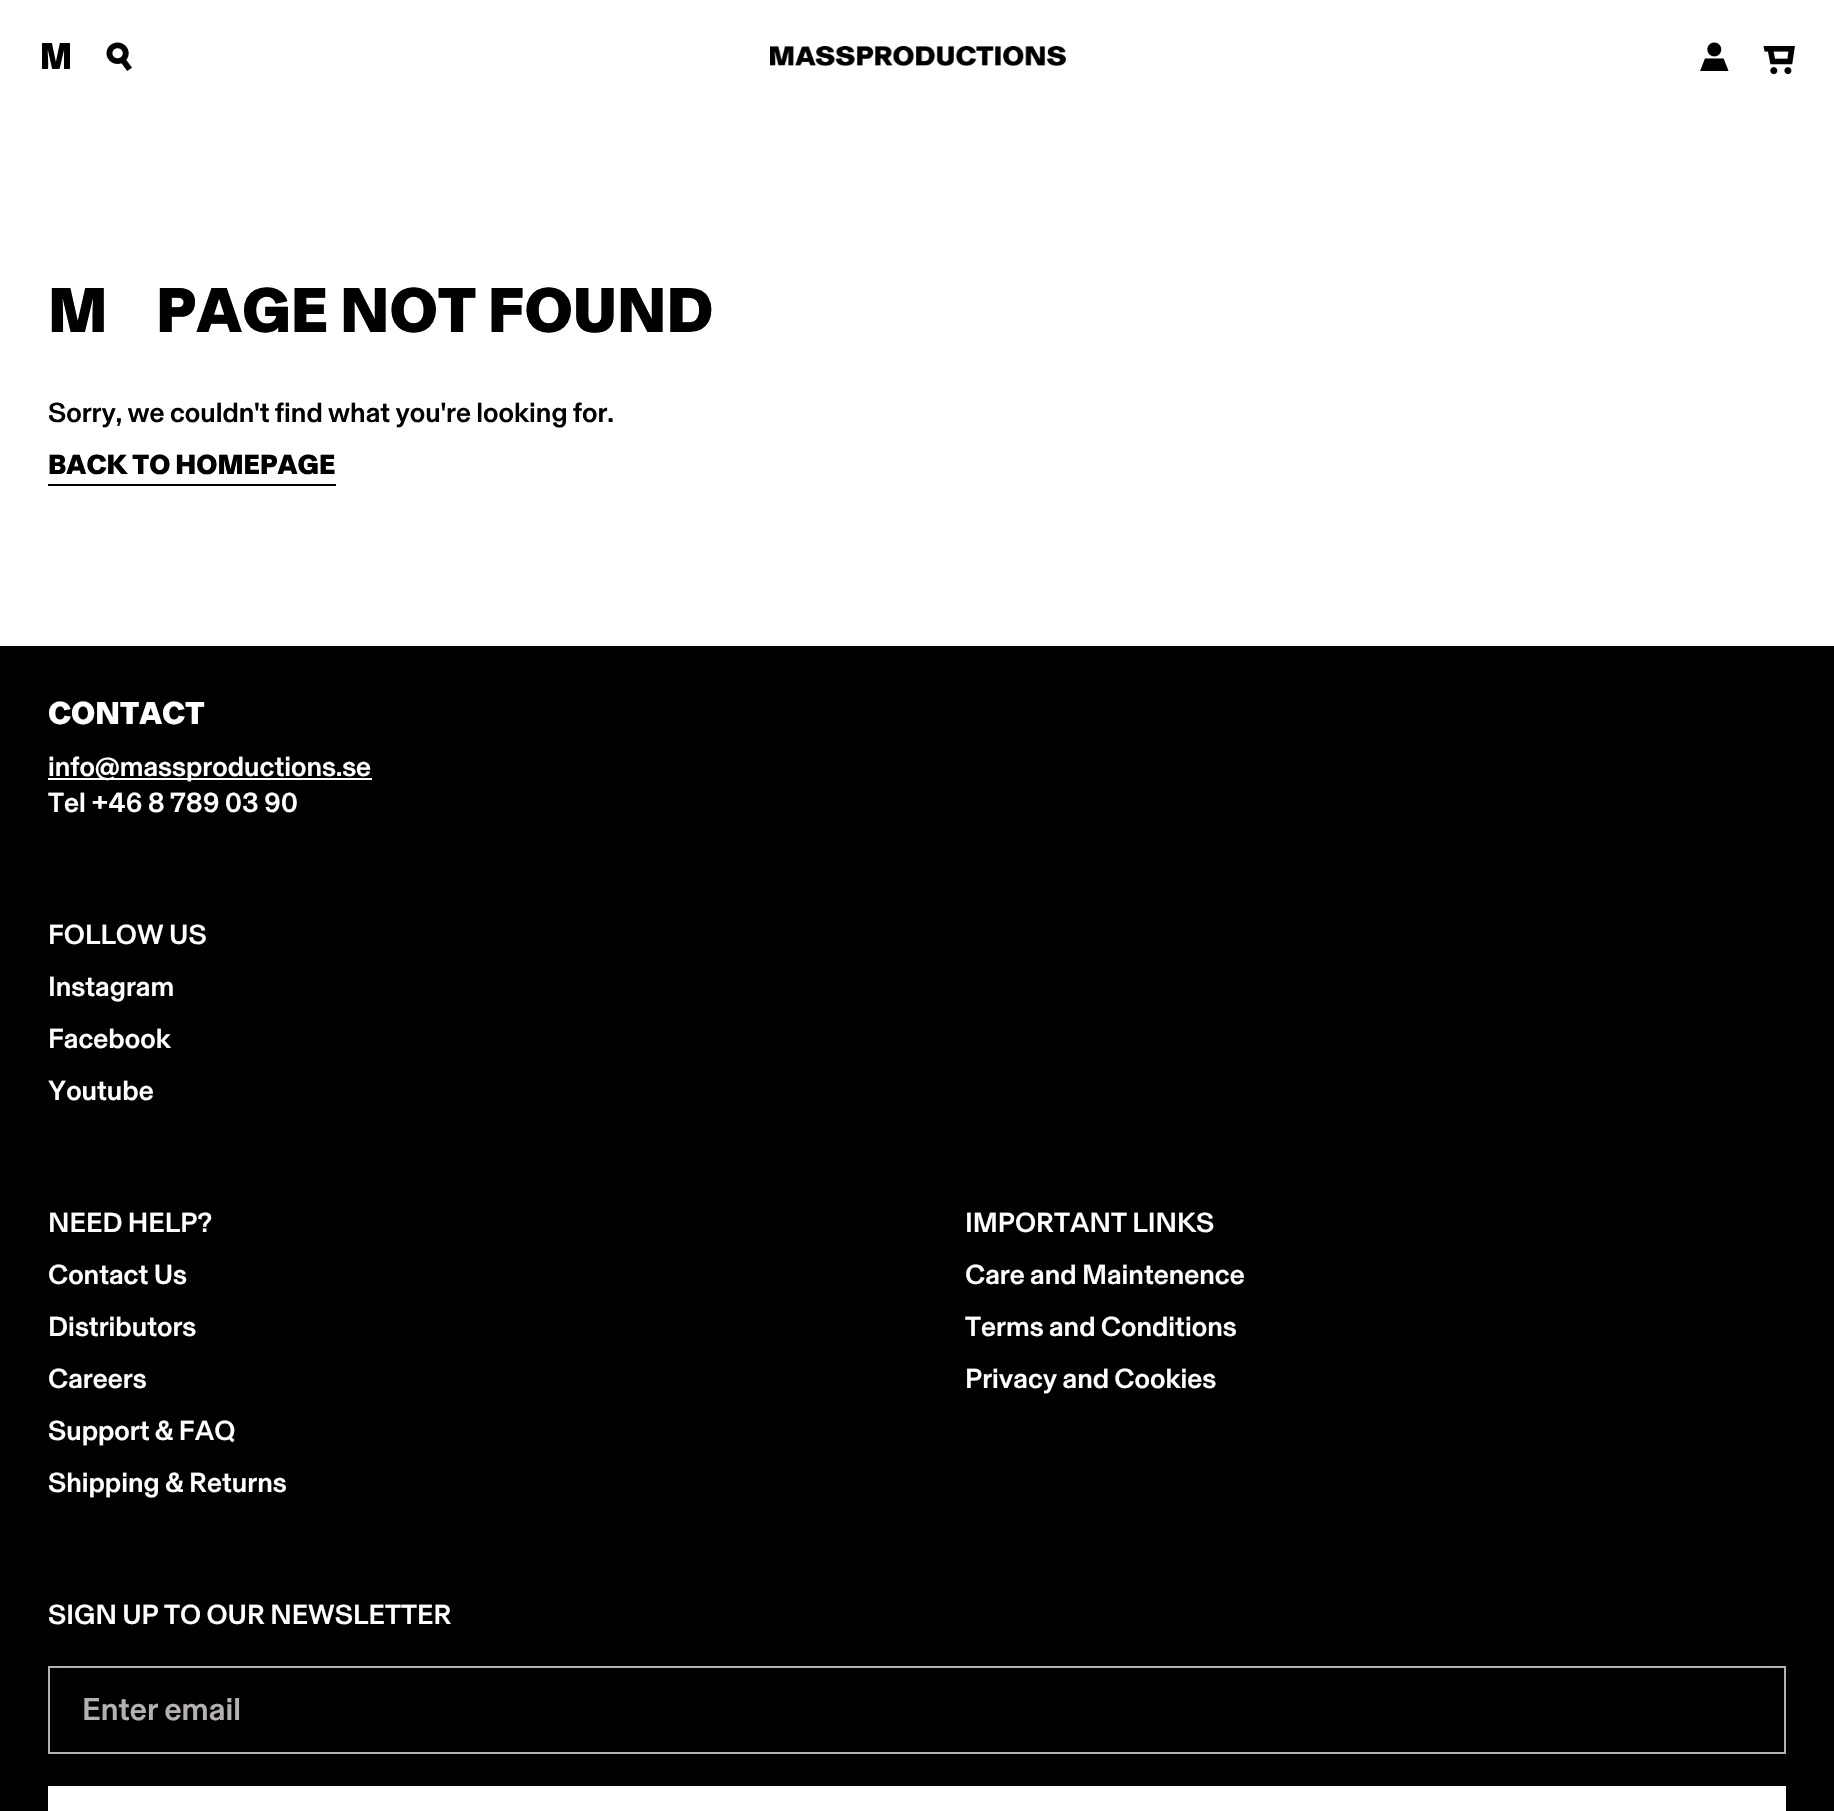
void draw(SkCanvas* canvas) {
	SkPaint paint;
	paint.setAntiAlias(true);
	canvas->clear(0xffffffff);
	canvas->drawImageRect(SkImages::DeferredFromEncodedData(SkData::MakeFromFileName("img1.png")), SkRect::MakeXYWH(42, 43, 28, 26), SkSamplingOptions());
	canvas->drawImageRect(SkImages::DeferredFromEncodedData(SkData::MakeFromFileName("img2.png")), SkRect::MakeXYWH(106, 42, 26, 29), SkSamplingOptions());
	canvas->drawImageRect(SkImages::DeferredFromEncodedData(SkData::MakeFromFileName("img3.png")), SkRect::MakeXYWH(770, 46, 296, 20), SkSamplingOptions());
	canvas->drawImageRect(SkImages::DeferredFromEncodedData(SkData::MakeFromFileName("img4.png")), SkRect::MakeXYWH(1700, 42, 29, 29), SkSamplingOptions());
	canvas->drawImageRect(SkImages::DeferredFromEncodedData(SkData::MakeFromFileName("img5.png")), SkRect::MakeXYWH(1763, 46, 32, 29), SkSamplingOptions());
	SkFont f1(fontMgr->matchFamilyStyle("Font", SkFontStyle::Bold()), 64);
	f1.setSubpixel(true);
	paint.setColor(0xff000000);
	canvas->drawString("M", 48, 332, f1, paint);
	canvas->drawString("PAGE NOT FOUND", 156, 332, f1, paint);
	SkFont f2(fontMgr->matchFamilyStyle("Font", SkFontStyle(500, SkFontStyle::kNormal_Width, SkFontStyle::kUpright_Slant)), 28);
	f2.setSubpixel(true);
	canvas->drawString("Sorry, we couldn't find what you're looking for.", 48, 422, f2, paint);
	canvas->drawRect(SkRect::MakeXYWH(48, 484, 288, 2), paint);
	SkFont f3(fontMgr->matchFamilyStyle("Font", SkFontStyle::Bold()), 28);
	f3.setSubpixel(true);
	canvas->drawString("BACK TO HOMEPAGE", 48, 474, f3, paint);
	canvas->drawRect(SkRect::MakeXYWH(0, 646, 1834, 1165), paint);
	SkFont f4(fontMgr->matchFamilyStyle("Font", SkFontStyle::Bold()), 32);
	f4.setSubpixel(true);
	paint.setColor(0xffffffff);
	canvas->drawString("CONTACT", 48, 724, f4, paint);
	canvas->drawRect(SkRect::MakeXYWH(48, 778, 324, 2), paint);
	canvas->drawString("info@massproductions.se", 48, 776, f2, paint);
	canvas->drawString("Tel +46 8 789 03 90", 48, 812, f2, paint);
	canvas->drawString("FOLLOW US", 48, 944, f2, paint);
	canvas->drawString("Instagram", 48, 996, f2, paint);
	canvas->drawString("Facebook", 48, 1048, f2, paint);
	canvas->drawString("Youtube", 48, 1100, f2, paint);
	canvas->drawString("NEED HELP?", 48, 1232, f2, paint);
	canvas->drawString("Contact Us", 48, 1284, f2, paint);
	canvas->drawString("Distributors", 48, 1336, f2, paint);
	canvas->drawString("Careers", 48, 1388, f2, paint);
	canvas->drawString("Support & FAQ", 48, 1440, f2, paint);
	canvas->drawString("Shipping & Returns", 48, 1492, f2, paint);
	canvas->drawString("IMPORTANT LINKS", 965, 1232, f2, paint);
	canvas->drawString("Care and Maintenence", 965, 1284, f2, paint);
	canvas->drawString("Terms and Conditions", 965, 1336, f2, paint);
	canvas->drawString("Privacy and Cookies", 965, 1388, f2, paint);
	canvas->drawString("SIGN UP TO OUR NEWSLETTER", 48, 1624, f2, paint);
	paint.setStroke(true);
	paint.setStrokeWidth(2);
	paint.setColor(0xffb6b1b1);
	canvas->drawRect(SkRect::MakeXYWH(49, 1667, 1736, 86), paint);
	SkFont f5(fontMgr->matchFamilyStyle("Font", SkFontStyle(500, SkFontStyle::kNormal_Width, SkFontStyle::kUpright_Slant)), 32);
	f5.setSubpixel(true);
	paint.setStroke(false);
	canvas->drawString("Enter email", 82, 1720, f5, paint);
	paint.setColor(0xffffffff);
	canvas->drawRect(SkRect::MakeXYWH(48, 1786, 1738, 25), paint);
}
